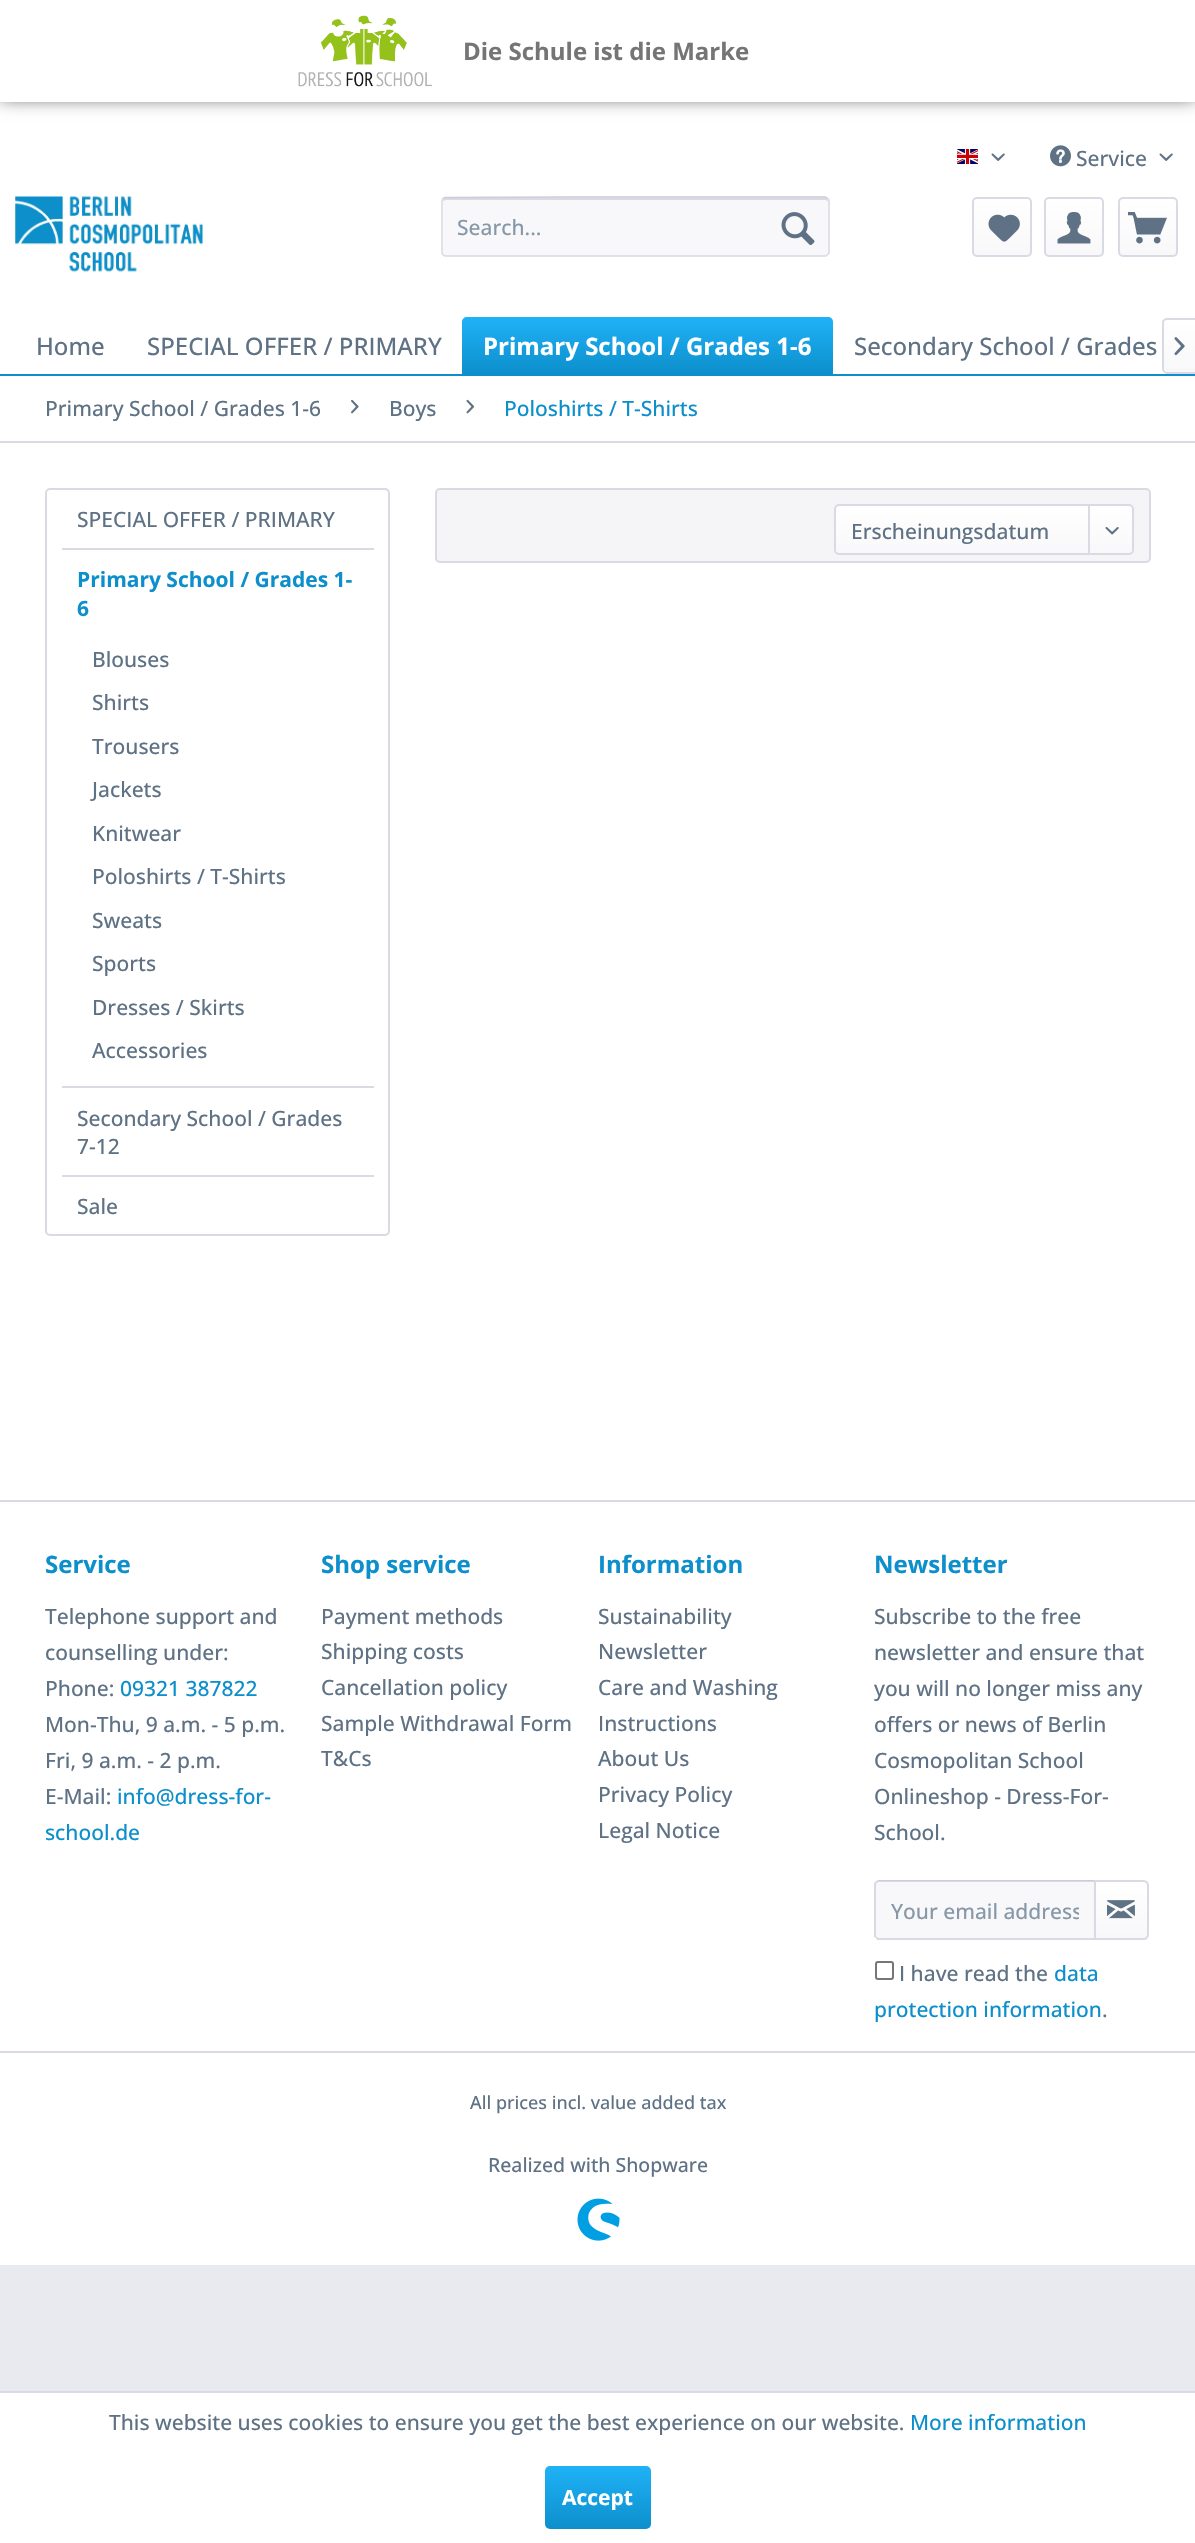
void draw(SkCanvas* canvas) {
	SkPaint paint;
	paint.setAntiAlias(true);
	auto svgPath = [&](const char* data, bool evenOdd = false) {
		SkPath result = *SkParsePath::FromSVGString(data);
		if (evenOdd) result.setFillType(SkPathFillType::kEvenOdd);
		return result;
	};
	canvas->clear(0xffe9e9f0);
	paint.setColor(0xffffffff);
	canvas->drawRect(SkRect::MakeXYWH(0, 102, 1195, 272), paint);
	paint.setColor(0xff222222);
	paint.setMaskFilter(SkMaskFilter::MakeBlur(kNormal_SkBlurStyle, 9));
	canvas->drawRect(SkRect::MakeXYWH(0, -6, 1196, 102), paint);
	paint.setMaskFilter(nullptr);
	paint.setColor(0xffffffff);
	canvas->drawRect(SkRect::MakeXYWH(0, 0, 1195, 102), paint);
	canvas->drawImageRect(SkImages::DeferredFromEncodedData(SkData::MakeFromFileName("img1.png")), SkRect::MakeXYWH(298, 15, 134, 72), SkSamplingOptions());
	SkFont f1(fontMgr->matchFamilyStyle("Open Sans", SkFontStyle::Bold()), 24);
	f1.setSubpixel(true);
	paint.setColor(0xff757575);
	canvas->drawString("Die Schule ist die Marke", 463, 60, f1, paint);
	canvas->drawImageRect(SkImages::DeferredFromEncodedData(SkData::MakeFromFileName("img2.png")), SkRect::MakeXYWH(957, 149, 21, 15), SkSamplingOptions());
	canvas->drawImageRect(SkImages::DeferredFromEncodedData(SkData::MakeFromFileName("img3.png")), SkRect::MakeXYWH(991, 153, 14, 8), SkSamplingOptions());
	canvas->drawImageRect(SkImages::DeferredFromEncodedData(SkData::MakeFromFileName("img4.png")), SkRect::MakeXYWH(1050, 145, 21, 22), SkSamplingOptions());
	SkFont f2(fontMgr->matchFamilyStyle("Open Sans", SkFontStyle(500, SkFontStyle::kNormal_Width, SkFontStyle::kUpright_Slant)), 21);
	f2.setSubpixel(true);
	paint.setColor(0xff5f7285);
	canvas->drawString("Service", 1076, 166, f2, paint);
	canvas->drawImageRect(SkImages::DeferredFromEncodedData(SkData::MakeFromFileName("img3.png")), SkRect::MakeXYWH(1159, 153, 14, 8), SkSamplingOptions());
	canvas->drawImageRect(SkImages::DeferredFromEncodedData(SkData::MakeFromFileName("img5.png")), SkRect::MakeXYWH(15, 196, 188, 76), SkSamplingOptions());
	paint.setColor(0xfff8f8fa);
	canvas->drawRoundRect(SkRect::MakeXYWH(441, 197, 389, 60), 5, 5, paint);
	paint.setColor(0xffdadae5);
	canvas->drawPath(svgPath("M446 200H825C827 200 828 201 828 202V201C828 199 827 198 825 198H446C444 198 443 199 443 201Z"), paint);
	paint.setStroke(true);
	paint.setStrokeWidth(1.5);
	paint.setColor(0xffcbcbdb);
	canvas->drawPath(svgPath("M443 198.5L445 197.5L572 197H825L827.5 198.5"), paint);
	paint.setColor(0xffdadae5);
	canvas->drawPath(svgPath("M827.5 198.5C828.5 199 829 200 829 201V252C829 253 828.5 254 827.5 254.5C827 255.5 826 256 825 256H445.5C444.5 256 443.5 255.5 443 254.5C442 254 442 253 442 252V201C442 200 442 199 443 198.5"), paint);
	paint.setStroke(false);
	paint.setColor(0xff8798a9);
	canvas->drawString("Search...", 457, 235, f2, paint);
	canvas->drawImageRect(SkImages::DeferredFromEncodedData(SkData::MakeFromFileName("img6.png")), SkRect::MakeXYWH(781, 212, 34, 33), SkSamplingOptions());
	{
		const SkColor colors[] = {0xffffffff, 0xfff8f8fa};
		const float stops[] = {0, 1};
		const SkPoint ends[] = {{1002, 198}, {1002, 255}};
		paint.setShader(SkGradientShader::MakeLinear(ends, colors, stops, 2, SkTileMode::kClamp));
		paint.setAlpha(255);
	}
	canvas->drawRoundRect(SkRect::MakeXYWH(974, 198, 57, 57), 3, 3, paint);
	paint.setStroke(true);
	paint.setStrokeWidth(2);
	paint.setShader(nullptr);
	paint.setColor(0xffdadae5);
	canvas->drawRoundRect(SkRect::MakeXYWH(973, 198, 58, 58), 4, 4, paint);
	canvas->drawImageRect(SkImages::DeferredFromEncodedData(SkData::MakeFromFileName("img7.png")), SkRect::MakeXYWH(988, 214, 32, 28), SkSamplingOptions());
	paint.setStroke(false);
	{
		const SkColor colors[] = {0xffffffff, 0xfff8f8fa};
		const float stops[] = {0, 1};
		const SkPoint ends[] = {{1074, 198}, {1074, 255}};
		paint.setShader(SkGradientShader::MakeLinear(ends, colors, stops, 2, SkTileMode::kClamp));
		paint.setAlpha(255);
	}
	canvas->drawRoundRect(SkRect::MakeXYWH(1046, 198, 57, 57), 3, 3, paint);
	paint.setStroke(true);
	paint.setShader(nullptr);
	paint.setColor(0xffdadae5);
	canvas->drawRoundRect(SkRect::MakeXYWH(1045, 198, 58, 58), 4, 4, paint);
	canvas->drawImageRect(SkImages::DeferredFromEncodedData(SkData::MakeFromFileName("img8.png")), SkRect::MakeXYWH(1057, 212, 34, 32), SkSamplingOptions());
	paint.setStroke(false);
	{
		const SkColor colors[] = {0xffffffff, 0xfff8f8fa};
		const float stops[] = {0, 1};
		const SkPoint ends[] = {{1148, 198}, {1148, 255}};
		paint.setShader(SkGradientShader::MakeLinear(ends, colors, stops, 2, SkTileMode::kClamp));
		paint.setAlpha(255);
	}
	canvas->drawRoundRect(SkRect::MakeXYWH(1119, 198, 57, 57), 3, 3, paint);
	paint.setStroke(true);
	paint.setShader(nullptr);
	paint.setColor(0xffdadae5);
	canvas->drawRoundRect(SkRect::MakeXYWH(1119, 198, 58, 58), 4, 4, paint);
	canvas->drawImageRect(SkImages::DeferredFromEncodedData(SkData::MakeFromFileName("img9.png")), SkRect::MakeXYWH(1128, 212, 39, 32), SkSamplingOptions());
	paint.setStroke(false);
	paint.setColor(0xff0d8fcc);
	canvas->drawRect(SkRect::MakeXYWH(0, 374, 1195, 2), paint);
	SkFont f3(fontMgr->matchFamilyStyle("Open Sans", SkFontStyle(500, SkFontStyle::kNormal_Width, SkFontStyle::kUpright_Slant)), 24);
	f3.setSubpixel(true);
	paint.setColor(0xff5f7285);
	canvas->drawString("Home", 36, 355, f3, paint);
	canvas->drawString("SPECIAL OFFER / PRIMARY", 147, 355, f3, paint);
	{
		const SkColor colors[] = {0xff1fb2f7, 0xff0d8fcc};
		const float stops[] = {0, 1};
		const SkPoint ends[] = {{647, 317}, {647, 374}};
		paint.setShader(SkGradientShader::MakeLinear(ends, colors, stops, 2, SkTileMode::kClamp));
		paint.setAlpha(255);
	}
	canvas->drawPath(svgPath("M467 317H828C831 317 833 319 833 322V374H462V322C462 319 464 317 467 317Z"), paint);
	paint.setShader(nullptr);
	paint.setColor(0xffffffff);
	canvas->drawString("Primary School / Grades 1-6", 483, 355, f1, paint);
	paint.setColor(0xff5f7285);
	canvas->drawString("Secondary School / Grades", 854, 355, f3, paint);
	{
		const SkColor colors[] = {0xffffffff, 0xfff8f8fa};
		const float stops[] = {0, 1};
		const SkPoint ends[] = {{1180, 320}, {1180, 372}};
		paint.setShader(SkGradientShader::MakeLinear(ends, colors, stops, 2, SkTileMode::kClamp));
		paint.setAlpha(255);
	}
	canvas->drawPath(svgPath("M1167 320H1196V372H1167C1165.5 372 1164 370.5 1164 369V323C1164 321.5 1165.5 320 1167 320Z"), paint);
	paint.setShader(nullptr);
	paint.setColor(0xffdadae5);
	canvas->drawPath(svgPath("M1167 318H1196V374H1167C1165 374 1162 371 1162 369V322C1162 320 1165 318 1167 318ZM1167 320H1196V372H1167C1165 372 1164 371 1164 369V322C1164 321 1165 320 1167 320Z", true), paint);
	canvas->drawImageRect(SkImages::DeferredFromEncodedData(SkData::MakeFromFileName("img10.png")), SkRect::MakeXYWH(1174, 337, 11, 19), SkSamplingOptions());
	paint.setColor(0xffffffff);
	canvas->drawRect(SkRect::MakeXYWH(0, 376, 1195, 1124), paint);
	paint.setColor(0xffdadae5);
	canvas->drawRect(SkRect::MakeXYWH(0, 441, 1195, 2), paint);
	paint.setColor(0xff5f7285);
	canvas->drawString("Primary School / Grades 1-6", 45, 416, f2, paint);
	canvas->drawImageRect(SkImages::DeferredFromEncodedData(SkData::MakeFromFileName("img11.png")), SkRect::MakeXYWH(351, 399, 8, 15), SkSamplingOptions());
	canvas->drawString("Boys", 389, 416, f2, paint);
	canvas->drawImageRect(SkImages::DeferredFromEncodedData(SkData::MakeFromFileName("img12.png")), SkRect::MakeXYWH(466, 399, 9, 15), SkSamplingOptions());
	paint.setColor(0xff0d8fcc);
	canvas->drawString("Poloshirts / T-Shirts", 504, 416, f2, paint);
	paint.setStroke(true);
	paint.setColor(0xffdadae5);
	canvas->drawRoundRect(SkRect::MakeXYWH(46, 489, 343, 746), 4, 4, paint);
	paint.setStroke(false);
	canvas->drawRect(SkRect::MakeXYWH(62, 548, 312, 2), paint);
	paint.setColor(0xff5f7285);
	canvas->drawString("SPECIAL OFFER / PRIMARY", 77, 527, f2, paint);
	paint.setColor(0xffdadae5);
	canvas->drawRect(SkRect::MakeXYWH(62, 1086, 312, 2), paint);
	SkFont f4(fontMgr->matchFamilyStyle("Open Sans", SkFontStyle::Bold()), 21);
	f4.setSubpixel(true);
	paint.setColor(0xff0d8fcc);
	canvas->drawString("Primary School / Grades 1-", 77, 587, f4, paint);
	canvas->drawString("6", 77, 616, f4, paint);
	paint.setColor(0xff5f7285);
	canvas->drawString("Blouses", 92, 667, f2, paint);
	canvas->drawString("Shirts", 92, 710, f2, paint);
	canvas->drawString("Trousers", 92, 754, f2, paint);
	canvas->drawString("Jackets", 92, 797, f2, paint);
	canvas->drawString("Knitwear", 92, 841, f2, paint);
	canvas->drawString("Poloshirts / T-Shirts", 92, 884, f2, paint);
	canvas->drawString("Sweats", 92, 928, f2, paint);
	canvas->drawString("Sports", 92, 971, f2, paint);
	canvas->drawString("Dresses / Skirts", 92, 1015, f2, paint);
	canvas->drawString("Accessories", 92, 1058, f2, paint);
	paint.setColor(0xffdadae5);
	canvas->drawRect(SkRect::MakeXYWH(62, 1175, 312, 2), paint);
	paint.setColor(0xff5f7285);
	canvas->drawString("Secondary School / Grades", 77, 1126, f2, paint);
	canvas->drawString("7-12", 77, 1154, f2, paint);
	canvas->drawString("Sale", 77, 1214, f2, paint);
	paint.setColor(0xfff5f5f8);
	canvas->drawRoundRect(SkRect::MakeXYWH(436, 489, 714, 73), 4, 4, paint);
	paint.setStroke(true);
	paint.setColor(0xffdadae5);
	canvas->drawRoundRect(SkRect::MakeXYWH(436, 489, 714, 73), 4, 4, paint);
	paint.setStroke(false);
	{
		const SkColor colors[] = {0xffffffff, 0xfff8f8fa};
		const float stops[] = {0, 1};
		const SkPoint ends[] = {{984, 506}, {984, 554}};
		paint.setShader(SkGradientShader::MakeLinear(ends, colors, stops, 2, SkTileMode::kClamp));
		paint.setAlpha(255);
	}
	canvas->drawRoundRect(SkRect::MakeXYWH(836, 506, 297, 48), 3, 3, paint);
	paint.setStroke(true);
	paint.setShader(nullptr);
	paint.setColor(0xffdadae5);
	canvas->drawRoundRect(SkRect::MakeXYWH(835, 505, 298, 49), 4, 4, paint);
	paint.setStroke(false);
	paint.setColor(0xff5f7285);
	canvas->drawString("Erscheinungsdatum", 851, 539, f2, paint);
	paint.setColor(0xffdadae5);
	canvas->drawRect(SkRect::MakeXYWH(1088, 506, 2, 49), paint);
	canvas->drawImageRect(SkImages::DeferredFromEncodedData(SkData::MakeFromFileName("img13.png")), SkRect::MakeXYWH(1105, 527, 14, 8), SkSamplingOptions());
	paint.setColor(0xffffffff);
	canvas->drawRect(SkRect::MakeXYWH(0, 1502, 1195, 763), paint);
	paint.setColor(0xffdadae5);
	canvas->drawRect(SkRect::MakeXYWH(0, 1500, 1195, 2), paint);
	canvas->drawRect(SkRect::MakeXYWH(0, 2051, 1195, 2), paint);
	paint.setColor(0xff0d8fcc);
	canvas->drawString("Service", 45, 1573, f1, paint);
	paint.setColor(0xff5f7285);
	canvas->drawString("Telephone support and", 45, 1624, f2, paint);
	canvas->drawString("counselling under:", 45, 1660, f2, paint);
	canvas->drawString("Phone:", 45, 1696, f2, paint);
	paint.setColor(0xff0d8fcc);
	canvas->drawString("09321 387822", 120, 1696, f2, paint);
	paint.setColor(0xff5f7285);
	canvas->drawString("Mon-Thu, 9 a.m. - 5 p.m.", 45, 1732, f2, paint);
	canvas->drawString("Fri, 9 a.m. - 2 p.m.", 45, 1768, f2, paint);
	canvas->drawString("E-Mail:", 45, 1804, f2, paint);
	paint.setColor(0xff0d8fcc);
	canvas->drawString("info@dress-for-", 117, 1804, f2, paint);
	canvas->drawString("school.de", 45, 1840, f2, paint);
	canvas->drawString("Shop service", 321, 1573, f1, paint);
	paint.setColor(0xff5f7285);
	canvas->drawString("Payment methods", 321, 1624, f2, paint);
	canvas->drawString("Shipping costs", 321, 1659, f2, paint);
	canvas->drawString("Cancellation policy", 321, 1695, f2, paint);
	canvas->drawString("Sample Withdrawal Form", 321, 1731, f2, paint);
	canvas->drawString("T&Cs", 321, 1766, f2, paint);
	paint.setColor(0xff0d8fcc);
	canvas->drawString("Information", 598, 1573, f1, paint);
	paint.setColor(0xff5f7285);
	canvas->drawString("Sustainability", 598, 1624, f2, paint);
	canvas->drawString("Newsletter", 598, 1659, f2, paint);
	canvas->drawString("Care and Washing", 598, 1695, f2, paint);
	canvas->drawString("Instructions", 598, 1731, f2, paint);
	canvas->drawString("About Us", 598, 1766, f2, paint);
	canvas->drawString("Privacy Policy", 598, 1802, f2, paint);
	canvas->drawString("Legal Notice", 598, 1838, f2, paint);
	paint.setColor(0xff0d8fcc);
	canvas->drawString("Newsletter", 874, 1573, f1, paint);
	paint.setColor(0xff5f7285);
	canvas->drawString("Subscribe to the free", 874, 1624, f2, paint);
	canvas->drawString("newsletter and ensure that", 874, 1660, f2, paint);
	canvas->drawString("you will no longer miss any", 874, 1696, f2, paint);
	canvas->drawString("offers or news of Berlin", 874, 1732, f2, paint);
	canvas->drawString("Cosmopolitan School", 874, 1768, f2, paint);
	canvas->drawString("Onlineshop - Dress-For-", 874, 1804, f2, paint);
	canvas->drawString("School.", 874, 1840, f2, paint);
	paint.setColor(0xfff8f8fa);
	canvas->drawPath(svgPath("M879 1881H1094V1938H879C877.5 1938 876 1936.5 876 1935V1884C876 1882.5 877.5 1881 879 1881Z"), paint);
	paint.setColor(0xffdadae5);
	canvas->drawPath(svgPath("M879 1882H1094V1881H879C876 1881 876 1884 876 1886C876 1884 877 1882 879 1882Z"), paint);
	paint.setColor(0xffcbcbdb);
	canvas->drawPath(svgPath("M879 1880L876 1881L877 1882L879 1881H1094V1880Z"), paint);
	paint.setColor(0xffdadae5);
	canvas->drawPath(svgPath("M1095 1940H877L876 1938L877 1937L879 1938H1094Z"), paint);
	canvas->drawPath(svgPath("M874 1883L876 1881L877 1882L876 1883V1936L877 1937L876 1938L874 1937Z"), paint);
	canvas->save();
	canvas->clipRect(SkRect::MakeXYWH(891, 1896, 188, 29));
	paint.setColor(0xff8798a9);
	canvas->drawString("Your email address", 891, 1919, f2, paint);
	canvas->restore();
	{
		const SkColor colors[] = {0xffffffff, 0xfff8f8fa};
		const float stops[] = {0, 1};
		const SkPoint ends[] = {{1121, 1881}, {1121, 1938}};
		paint.setShader(SkGradientShader::MakeLinear(ends, colors, stops, 2, SkTileMode::kClamp));
		paint.setAlpha(255);
	}
	canvas->drawPath(svgPath("M1095 1881H1145C1146.5 1881 1148 1882.5 1148 1884V1935C1148 1936.5 1146.5 1938 1145 1938H1095Z"), paint);
	paint.setStroke(true);
	paint.setShader(nullptr);
	paint.setColor(0xffdadae5);
	canvas->drawPath(svgPath("M1095 1881H1144C1146 1881 1148 1883 1148 1885V1935C1148 1937 1146 1939 1144 1939H1095Z"), paint);
	canvas->drawImageRect(SkImages::DeferredFromEncodedData(SkData::MakeFromFileName("img14.png")), SkRect::MakeXYWH(1107, 1900, 28, 19), SkSamplingOptions());
	paint.setColor(0xff767676);
	canvas->drawRoundRect(SkRect::MakeXYWH(876, 1962, 17, 17), 2, 2, paint);
	paint.setStroke(false);
	paint.setColor(0xff5f7285);
	canvas->drawString("I have read the", 899, 1981, f2, paint);
	paint.setColor(0xff0d8fcc);
	canvas->drawString("data", 1054, 1981, f2, paint);
	canvas->drawString("protection information", 874, 2017, f2, paint);
	paint.setColor(0xff5f7285);
	canvas->drawString(".", 1102, 2017, f2, paint);
	SkFont f5(fontMgr->matchFamilyStyle("Open Sans", SkFontStyle(500, SkFontStyle::kNormal_Width, SkFontStyle::kUpright_Slant)), 18);
	f5.setSubpixel(true);
	canvas->drawString("All prices incl. value added tax", 470, 2109, f5, paint);
	SkFont f6(fontMgr->matchFamilyStyle("Open Sans", SkFontStyle(500, SkFontStyle::kNormal_Width, SkFontStyle::kUpright_Slant)), 19.5);
	f6.setSubpixel(true);
	canvas->drawString("Realized with Shopware", 488, 2172, f6, paint);
	canvas->drawImageRect(SkImages::DeferredFromEncodedData(SkData::MakeFromFileName("img15.png")), SkRect::MakeXYWH(577, 2198, 43, 43), SkSamplingOptions());
	paint.setColor(0xffffffff);
	canvas->drawRect(SkRect::MakeXYWH(0, 2393, 1195, 150), paint);
	paint.setColor(0xffdadae5);
	canvas->drawRect(SkRect::MakeXYWH(0, 2391, 1195, 2), paint);
	paint.setColor(0xff5f7285);
	canvas->drawString("This website uses cookies to ensure you get the best experience on our website.", 109, 2430, f2, paint);
	paint.setColor(0xff0d8fcc);
	canvas->drawString("More information", 910, 2430, f2, paint);
	{
		const SkColor colors[] = {0xff1fb2f7, 0xff0d8fcc};
		const float stops[] = {0, 1};
		const SkPoint ends[] = {{598, 2466}, {598, 2529}};
		paint.setShader(SkGradientShader::MakeLinear(ends, colors, stops, 2, SkTileMode::kClamp));
		paint.setAlpha(255);
	}
	canvas->drawRoundRect(SkRect::MakeXYWH(545, 2466, 106, 63), 5, 5, paint);
	paint.setShader(nullptr);
	paint.setColor(0xffffffff);
	canvas->drawString("Accept", 562, 2505, f4, paint);
}
